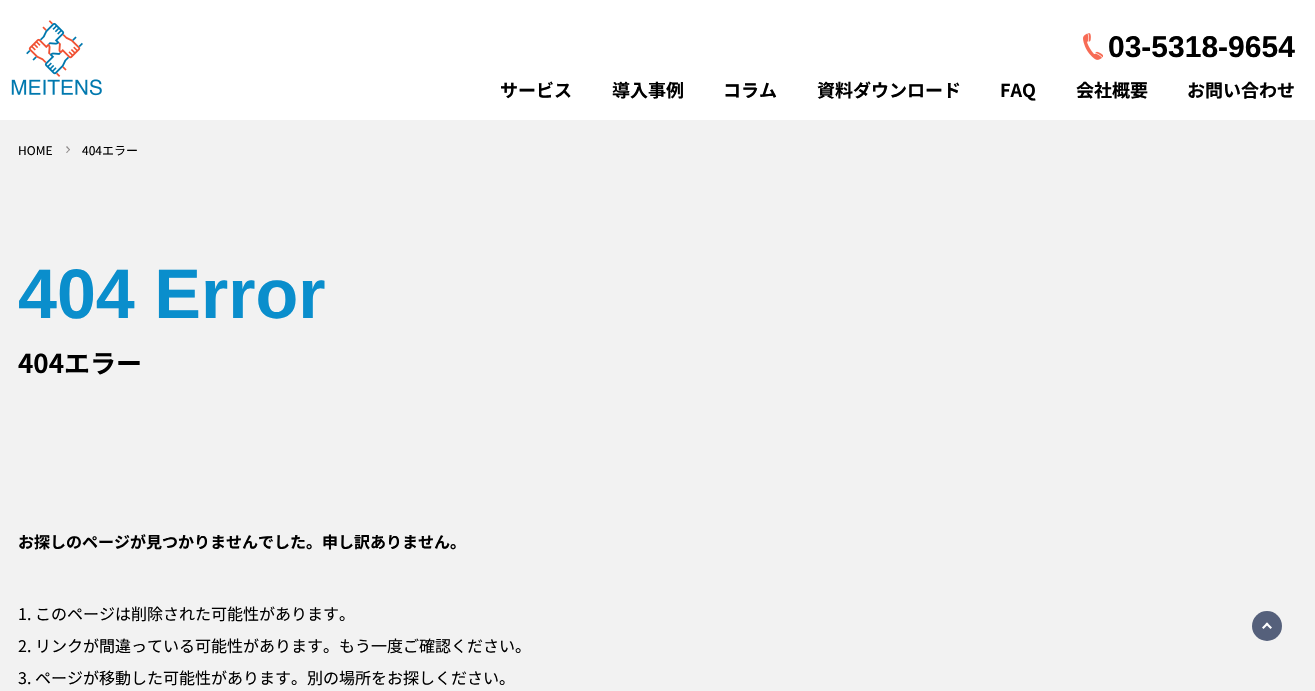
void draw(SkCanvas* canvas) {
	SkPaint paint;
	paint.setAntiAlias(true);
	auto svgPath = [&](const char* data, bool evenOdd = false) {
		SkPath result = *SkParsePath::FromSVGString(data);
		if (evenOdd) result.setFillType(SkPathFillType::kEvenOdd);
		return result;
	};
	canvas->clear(0xffffffff);
	canvas->drawImageRect(SkImages::DeferredFromEncodedData(SkData::MakeFromFileName("img1.png")), SkRect::MakeXYWH(11, 20, 91, 76), SkSamplingOptions());
	canvas->drawImageRect(SkImages::DeferredFromEncodedData(SkData::MakeFromFileName("img2.png")), SkRect::MakeXYWH(1083, 33, 20, 27), SkSamplingOptions());
	SkFont f1(fontMgr->matchFamilyStyle("Liberation Sans", SkFontStyle::Bold()), 30);
	f1.setSubpixel(true);
	paint.setColor(0xff000000);
	canvas->drawString("03-5318-9654", 1108, 57, f1, paint);
	SkFont f2(fontMgr->matchFamilyStyle("Noto Sans CJK JP", SkFontStyle::Bold()), 18);
	f2.setSubpixel(true);
	canvas->drawString("サービス", 500, 97, f2, paint);
	canvas->drawString("導入事例", 612, 97, f2, paint);
	canvas->drawString("コラム", 723, 97, f2, paint);
	canvas->drawString("資料ダウンロード", 817, 97, f2, paint);
	canvas->drawString("FAQ", 1000, 97, f2, paint);
	canvas->drawString("会社概要", 1076, 97, f2, paint);
	canvas->drawString("お問い合わせ", 1187, 97, f2, paint);
	paint.setColor(0xfff2f2f2);
	canvas->drawRect(SkRect::MakeXYWH(0, 120, 1315, 571), paint);
	SkFont f3(fontMgr->matchFamilyStyle("Noto Sans JP", SkFontStyle::Normal()), 12);
	f3.setSubpixel(true);
	paint.setColor(0xff000000);
	canvas->drawString("HOME", 18, 155, f3, paint);
	paint.setColor(0xff8d8989);
	canvas->drawPath(svgPath("M67 146L70 149.5L69.5 150.5L66 147Z"), paint);
	canvas->drawPath(svgPath("M69.5 149L70 149.5L67 153L66 152.5Z"), paint);
	paint.setColor(0xff000000);
	canvas->drawString("404エラー", 82, 155, f3, paint);
	SkFont f4(fontMgr->matchFamilyStyle("Liberation Sans", SkFontStyle::Bold()), 70);
	f4.setSubpixel(true);
	paint.setColor(0xff0a8ecc);
	canvas->drawString("404 Error", 18, 318, f4, paint);
	SkFont f5(fontMgr->matchFamilyStyle("Noto Sans CJK JP", SkFontStyle::Bold()), 26);
	f5.setSubpixel(true);
	paint.setColor(0xff000000);
	canvas->drawString("404エラー", 18, 373, f5, paint);
	SkFont f6(fontMgr->matchFamilyStyle("Noto Sans CJK JP", SkFontStyle::Bold()), 16);
	f6.setSubpixel(true);
	canvas->drawString("お探しのページが見つかりませんでした。申し訳ありません。", 18, 548, f6, paint);
	SkFont f7(fontMgr->matchFamilyStyle("Noto Sans JP", SkFontStyle::Normal()), 16);
	f7.setSubpixel(true);
	canvas->drawString("1. このページは削除された可能性があります。", 18, 620, f7, paint);
	canvas->drawString("2. リンクが間違っている可能性があります。もう一度ご確認ください。", 18, 652, f7, paint);
	canvas->drawString("3. ページが移動した可能性があります。別の場所をお探しください。", 18, 684, f7, paint);
	paint.setColor(0xff55607b);
	canvas->drawCircle(1267, 626, 15, paint);
	paint.setColor(0xffffffff);
	canvas->drawPath(svgPath("M1267 622.5L1272 627.5L1270.5 629L1265.5 624Z"), paint);
	canvas->drawPath(svgPath("M1267 622.5L1268.5 624L1263.5 629L1262 627.5Z"), paint);
}
